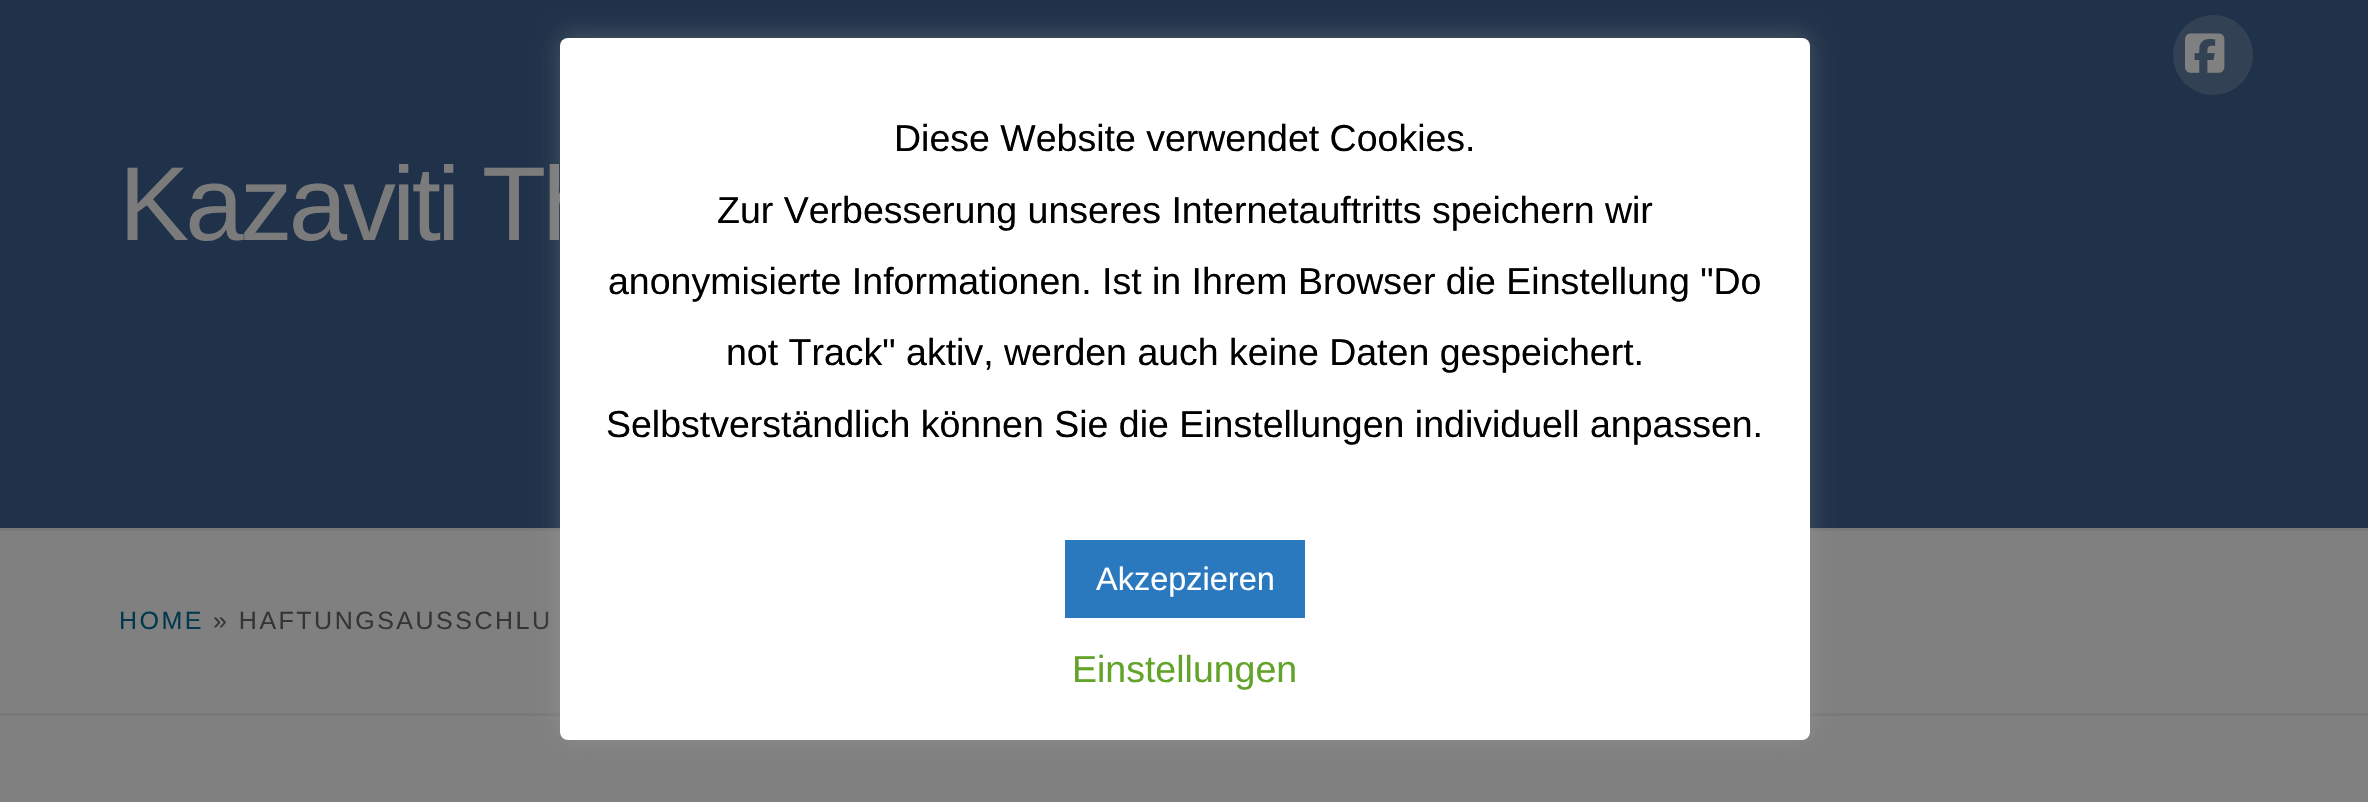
void draw(SkCanvas* canvas) {
	SkPaint paint;
	paint.setAntiAlias(true);
	auto spacedText = [&](const char* s, float x, float y, const SkFont& font, const SkPaint& ink, float letter, float word) {
		std::vector<SkGlyphID> glyphs(font.countText(s, strlen(s), SkTextEncoding::kUTF8));
		std::vector<float> xs(glyphs.size());
		font.textToGlyphs(s, strlen(s), SkTextEncoding::kUTF8, glyphs);
		font.getXPos(glyphs, xs, x);
		float extra = 0;
		for (size_t i = 0; i < glyphs.size(); i++) {
			xs[i] += extra;
			extra += letter + word * (glyphs[i] == font.unicharToGlyph(' '));
		}
		canvas->drawTextBlob(SkTextBlob::MakeFromPosHGlyphs(glyphs, xs, y, font), 0, 0, ink);
	};
	canvas->clear(0xff808080);
	paint.setColor(0xff1f3249);
	canvas->drawRect(SkRect::MakeXYWH(0, 0, 2368, 528), paint);
	paint.setColor(0xff324254);
	canvas->drawCircle(2213, 55, 40, paint);
	canvas->drawImageRect(SkImages::DeferredFromEncodedData(SkData::MakeFromFileName("img1.png")), SkRect::MakeXYWH(2185, 33, 40, 40), SkSamplingOptions());
	SkFont f1(fontMgr->matchFamilyStyle("Liberation Sans", SkFontStyle::Normal()), 105);
	f1.setSubpixel(true);
	paint.setColor(0xff7b7b7b);
	spacedText("Kazaviti Th", 119, 240, f1, paint, -3.75, 0);
	paint.setColor(0xff797979);
	canvas->drawRect(SkRect::MakeXYWH(0, 528, 2368, 3), paint);
	canvas->drawRect(SkRect::MakeXYWH(0, 713, 2368, 3), paint);
	SkFont f2(fontMgr->matchFamilyStyle("Liberation Sans", SkFontStyle::Normal()), 25);
	f2.setSubpixel(true);
	paint.setColor(0xff02394d);
	spacedText("HOME", 119, 629, f2, paint, 2.5, 0);
	paint.setColor(0xff363535);
	spacedText("» HAFTUNGSAUSSCHLU", 213, 629, f2, paint, 2.5, 0);
	paint.setColor(0x4dacabab);
	paint.setMaskFilter(SkMaskFilter::MakeBlur(kNormal_SkBlurStyle, 12.5));
	canvas->drawRoundRect(SkRect::MakeXYWH(560, 35, 1250, 703), 8, 8, paint);
	paint.setMaskFilter(nullptr);
	paint.setColor(0xffffffff);
	canvas->drawRoundRect(SkRect::MakeXYWH(560, 38, 1250, 702), 8, 8, paint);
	SkFont f3(fontMgr->matchFamilyStyle("Liberation Sans", SkFontStyle::Normal()), 37.5);
	f3.setSubpixel(true);
	paint.setColor(0xff000000);
	canvas->drawString("Diese Website verwendet Cookies.", 894, 151, f3, paint);
	canvas->drawString("Zur Verbesserung unseres Internetauftritts speichern wir", 717, 223, f3, paint);
	canvas->drawString("anonymisierte Informationen. Ist in Ihrem Browser die Einstellung \"Do", 608, 294, f3, paint);
	canvas->drawString("not Track\" aktiv, werden auch keine Daten gespeichert.", 726, 365, f3, paint);
	canvas->drawString("Selbstverständlich können Sie die Einstellungen individuell anpassen.", 606, 437, f3, paint);
	paint.setColor(0xff2a79bf);
	canvas->drawRect(SkRect::MakeXYWH(1065, 540, 240, 78), paint);
	SkFont f4(fontMgr->matchFamilyStyle("Liberation Sans", SkFontStyle::Normal()), 32.5);
	f4.setSubpixel(true);
	paint.setColor(0xffffffff);
	canvas->drawString("Akzepzieren", 1096, 590, f4, paint);
	paint.setColor(0xff62a329);
	canvas->drawString("Einstellungen", 1072, 682, f3, paint);
}
